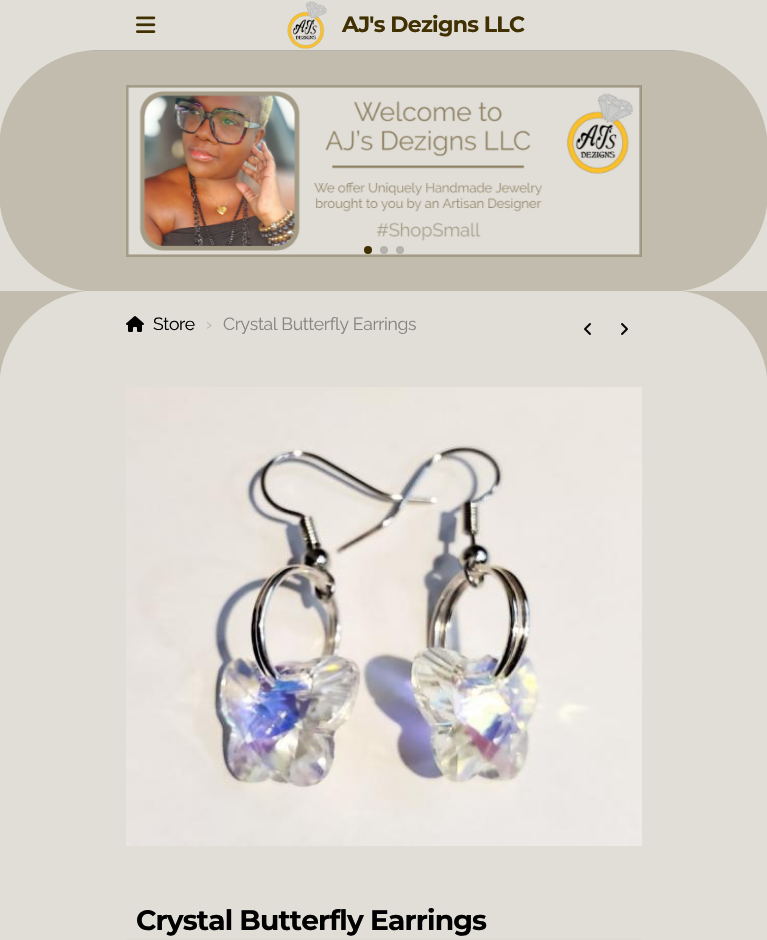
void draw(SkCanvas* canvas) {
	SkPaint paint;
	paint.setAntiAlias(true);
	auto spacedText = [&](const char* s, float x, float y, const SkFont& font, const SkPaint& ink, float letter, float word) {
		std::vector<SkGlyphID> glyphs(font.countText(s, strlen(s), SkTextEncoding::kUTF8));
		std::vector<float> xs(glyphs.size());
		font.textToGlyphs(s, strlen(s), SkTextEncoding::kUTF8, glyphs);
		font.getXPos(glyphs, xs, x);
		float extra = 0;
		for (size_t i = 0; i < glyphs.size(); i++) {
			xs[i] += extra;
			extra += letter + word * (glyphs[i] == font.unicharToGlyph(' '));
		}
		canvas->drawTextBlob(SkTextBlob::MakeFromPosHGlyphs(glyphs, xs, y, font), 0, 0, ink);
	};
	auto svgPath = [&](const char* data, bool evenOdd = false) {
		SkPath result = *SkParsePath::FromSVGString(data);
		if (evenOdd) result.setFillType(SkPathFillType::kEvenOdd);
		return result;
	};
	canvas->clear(0xffc2bcae);
	paint.setColor(0xffe0ded7);
	canvas->drawRect(SkRect::MakeXYWH(0, 0, 767, 50), paint);
	paint.setColor(0xffb3b2ac);
	canvas->drawRect(SkRect::MakeXYWH(0, 50, 767, 1), paint);
	canvas->drawImageRect(SkImages::DeferredFromEncodedData(SkData::MakeFromFileName("img1.png")), SkRect::MakeXYWH(136, 16, 20, 17), SkSamplingOptions());
	canvas->drawImageRect(SkImages::DeferredFromEncodedData(SkData::MakeFromFileName("img2.png")), SkRect::MakeXYWH(287, 1, 40, 48), SkSamplingOptions());
	SkFont f1(fontMgr->matchFamilyStyle("Montserrat", SkFontStyle::Bold()), 22);
	f1.setSubpixel(true);
	paint.setColor(0xff403002);
	spacedText("AJ's Dezigns LLC", 342, 32, f1, paint, -0.7, 0);
	paint.setColor(0xffe0ded7);
	canvas->drawPath(svgPath("M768 50V150C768 94 723 50 668 50ZM99 50C44 50-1 94-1 150V50Z"), paint);
	canvas->save();
	canvas->clipRect(SkRect::MakeXYWH(0, 192, 767, 99));
	canvas->drawPath(svgPath("M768 292V192C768 247 723 292 668 292ZM99 292C44 292-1 247-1 192V292Z"), paint);
	canvas->restore();
	canvas->drawImageRect(SkImages::DeferredFromEncodedData(SkData::MakeFromFileName("img3.png")), SkRect::MakeXYWH(126, 85, 515, 172), SkSamplingOptions());
	paint.setColor(0xff9c9481);
	canvas->drawRect(SkRect::MakeXYWH(641, 85, 1, 172), paint);
	paint.setColor(0xff403002);
	canvas->drawCircle(368, 250, 4, paint);
	paint.setColor(0xffb3b2ac);
	canvas->drawCircle(384, 250, 4, paint);
	canvas->drawCircle(400, 250, 4, paint);
	paint.setColor(0xffe0ded7);
	canvas->drawRect(SkRect::MakeXYWH(0, 291, 767, 649), paint);
	canvas->save();
	canvas->clipRect(SkRect::MakeXYWH(0, 291, 767, 99));
	paint.setColor(0xffc2bcae);
	canvas->drawPath(svgPath("M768 290V390C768 334 723 290 668 290ZM99 290C44 290-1 334-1 390V290Z"), paint);
	canvas->restore();
	canvas->drawImageRect(SkImages::DeferredFromEncodedData(SkData::MakeFromFileName("img4.png")), SkRect::MakeXYWH(126, 316, 18, 16), SkSamplingOptions());
	SkFont f2(fontMgr->matchFamilyStyle("Raleway", SkFontStyle::Normal()), 17.6);
	f2.setSubpixel(true);
	paint.setColor(0xff000000);
	spacedText("Store", 153, 330, f2, paint, -0.35, 0);
	paint.setColor(0xffb3b2ac);
	spacedText("›", 206, 330, f2, paint, -0.35, 0);
	paint.setColor(0xff868581);
	spacedText("Crystal Butterfly Earrings", 223, 330, f2, paint, -0.35, 0);
	canvas->drawImageRect(SkImages::DeferredFromEncodedData(SkData::MakeFromFileName("img5.png")), SkRect::MakeXYWH(584, 323, 7, 12), SkSamplingOptions());
	canvas->drawImageRect(SkImages::DeferredFromEncodedData(SkData::MakeFromFileName("img6.png")), SkRect::MakeXYWH(621, 323, 7, 12), SkSamplingOptions());
	canvas->drawImageRect(SkImages::DeferredFromEncodedData(SkData::MakeFromFileName("img7.png")), SkRect::MakeXYWH(126, 387, 516, 459), SkSamplingOptions());
	{
		const SkColor colors[] = {0xffd9d7d1, 0xffe0ded7};
		const float stops[] = {0, 0.3};
		const SkPoint ends[] = {{384, 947}, {384, 904}};
		paint.setShader(SkGradientShader::MakeLinear(ends, colors, stops, 2, SkTileMode::kClamp));
		paint.setAlpha(255);
	}
	canvas->drawRect(SkRect::MakeXYWH(126, 939, 516, 1), paint);
	SkFont f3(fontMgr->matchFamilyStyle("Montserrat", SkFontStyle::Bold()), 28.1);
	f3.setSubpixel(true);
	paint.setShader(nullptr);
	paint.setColor(0xff000000);
	spacedText("Crystal Butterfly Earrings", 136, 930, f3, paint, -0.85, 0);
}
